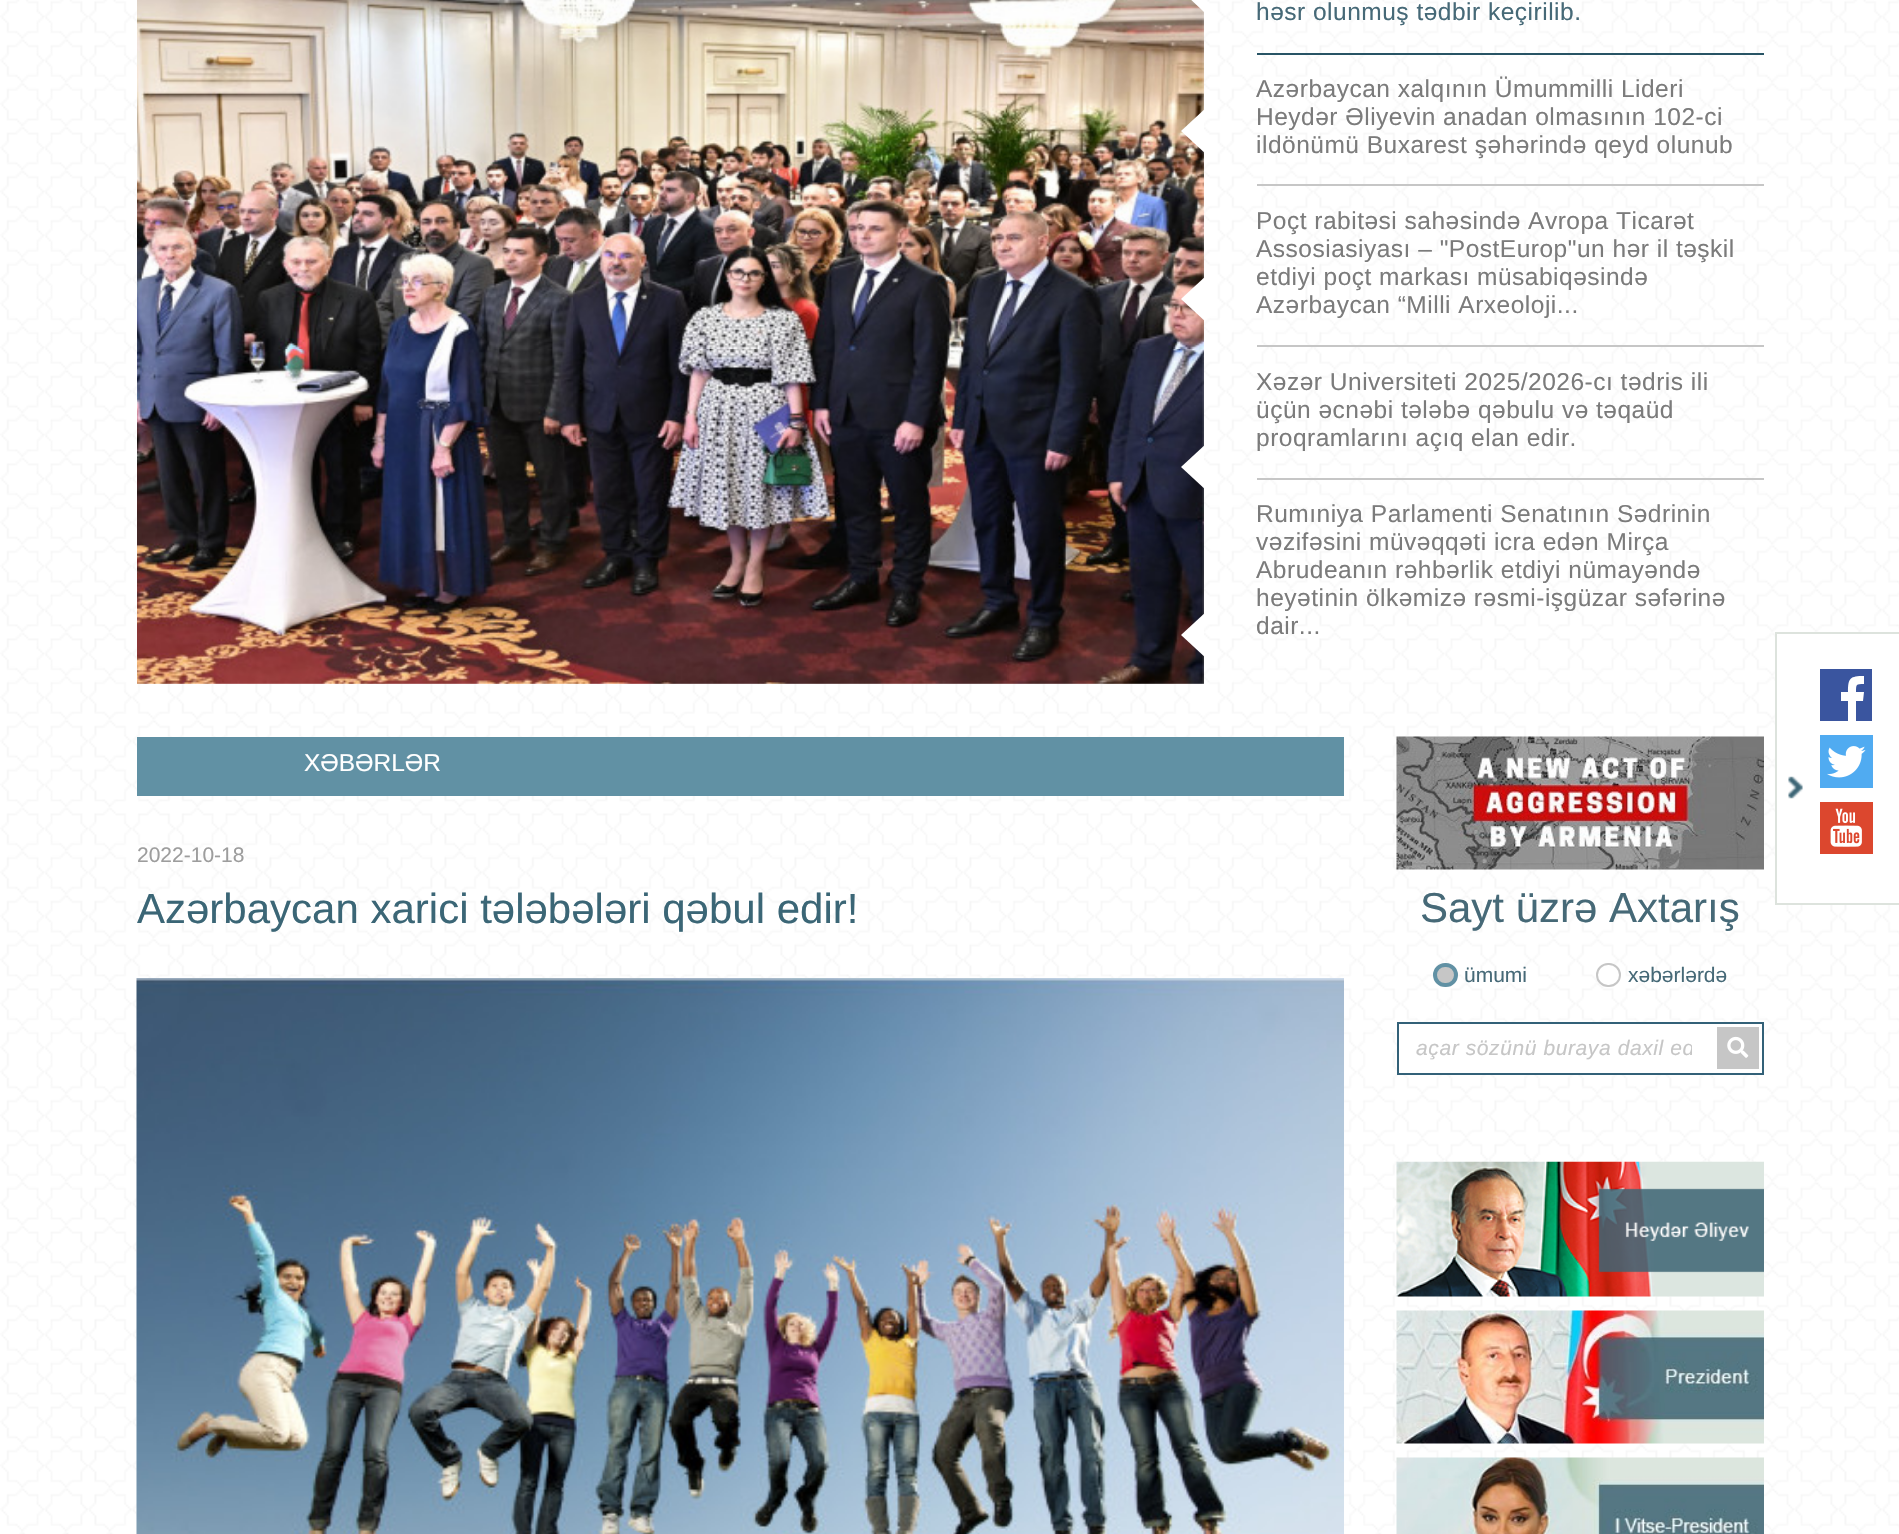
void draw(SkCanvas* canvas) {
	SkPaint paint;
	paint.setAntiAlias(true);
	auto spacedText = [&](const char* s, float x, float y, const SkFont& font, const SkPaint& ink, float letter, float word) {
		std::vector<SkGlyphID> glyphs(font.countText(s, strlen(s), SkTextEncoding::kUTF8));
		std::vector<float> xs(glyphs.size());
		font.textToGlyphs(s, strlen(s), SkTextEncoding::kUTF8, glyphs);
		font.getXPos(glyphs, xs, x);
		float extra = 0;
		for (size_t i = 0; i < glyphs.size(); i++) {
			xs[i] += extra;
			extra += letter + word * (glyphs[i] == font.unicharToGlyph(' '));
		}
		canvas->drawTextBlob(SkTextBlob::MakeFromPosHGlyphs(glyphs, xs, y, font), 0, 0, ink);
	};
	auto svgPath = [&](const char* data, bool evenOdd = false) {
		SkPath result = *SkParsePath::FromSVGString(data);
		if (evenOdd) result.setFillType(SkPathFillType::kEvenOdd);
		return result;
	};
	canvas->clear(0xffffffff);
	canvas->drawImageRect(SkImages::DeferredFromEncodedData(SkData::MakeFromFileName("img1.png")), SkRect::MakeXYWH(0, 0, 1899, 1534), SkSamplingOptions());
	canvas->drawImageRect(SkImages::DeferredFromEncodedData(SkData::MakeFromFileName("img2.png")), SkRect::MakeXYWH(137, 0, 1067, 684), SkSamplingOptions());
	paint.setColor(0xffffffff);
	canvas->drawPath(svgPath("M1204-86V12L1152-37Z"), paint);
	canvas->save();
	canvas->clipRect(SkRect::MakeXYWH(137, 0, 1067, 684));
	canvas->drawPath(svgPath("M1234 82V180L1181 131Z"), paint);
	canvas->drawPath(svgPath("M1234 250V348L1181 299Z"), paint);
	canvas->drawPath(svgPath("M1234 418V516L1181 467Z"), paint);
	canvas->drawPath(svgPath("M1234 586V684L1181 635Z"), paint);
	canvas->restore();
	paint.setColor(0xff285465);
	canvas->drawRect(SkRect::MakeXYWH(1257, 53, 507, 2), paint);
	SkFont f1(fontMgr->matchFamilyStyle("Liberation Sans", SkFontStyle::Normal()), 24.5);
	f1.setSubpixel(true);
	paint.setColor(0xff466977);
	spacedText("həsr olunmuş tədbir keçirilib.", 1256, 20, f1, paint, 0.5, 0);
	paint.setColor(0xffc6c6c6);
	canvas->drawRect(SkRect::MakeXYWH(1257, 184, 507, 2), paint);
	paint.setColor(0xff7b7b7b);
	spacedText("Azərbaycan xalqının Ümummilli Lideri", 1256, 97, f1, paint, 0.5, 0);
	spacedText("Heydər Əliyevin anadan olmasının 102-ci", 1256, 125, f1, paint, 0.5, 0);
	spacedText("ildönümü Buxarest şəhərində qeyd olunub", 1256, 153, f1, paint, 0.5, 0);
	paint.setColor(0xffc6c6c6);
	canvas->drawRect(SkRect::MakeXYWH(1257, 345, 507, 2), paint);
	paint.setColor(0xff7b7b7b);
	spacedText("Poçt rabitəsi sahəsində Avropa Ticarət", 1256, 229, f1, paint, 0.5, 0);
	spacedText("Assosiasiyası – \"PostEurop\"un hər il təşkil", 1256, 257, f1, paint, 0.5, 0);
	spacedText("etdiyi poçt markası müsabiqəsində", 1256, 285, f1, paint, 0.5, 0);
	spacedText("Azərbaycan “Milli Arxeoloji...", 1256, 313, f1, paint, 0.5, 0);
	paint.setColor(0xffc6c6c6);
	canvas->drawRect(SkRect::MakeXYWH(1257, 478, 507, 2), paint);
	paint.setColor(0xff7b7b7b);
	spacedText("Xəzər Universiteti 2025/2026-cı tədris ili", 1256, 390, f1, paint, 0.5, 0);
	spacedText("üçün əcnəbi tələbə qəbulu və təqaüd", 1256, 418, f1, paint, 0.5, 0);
	spacedText("proqramlarını açıq elan edir.", 1256, 446, f1, paint, 0.5, 0);
	spacedText("Rumıniya Parlamenti Senatının Sədrinin", 1256, 522, f1, paint, 0.5, 0);
	spacedText("vəzifəsini müvəqqəti icra edən Mirça", 1256, 550, f1, paint, 0.5, 0);
	spacedText("Abrudeanın rəhbərlik etdiyi nümayəndə", 1256, 578, f1, paint, 0.5, 0);
	spacedText("heyətinin ölkəmizə rəsmi-işgüzar səfərinə", 1256, 606, f1, paint, 0.5, 0);
	spacedText("dair...", 1256, 634, f1, paint, 0.5, 0);
	paint.setColor(0xff6191a4);
	canvas->drawRect(SkRect::MakeXYWH(137, 737, 1207, 59), paint);
	paint.setColor(0xffffffff);
	canvas->drawString("XƏBƏRLƏR", 304, 771, f1, paint);
	SkFont f2(fontMgr->matchFamilyStyle("Liberation Sans", SkFontStyle::Normal()), 21);
	f2.setSubpixel(true);
	paint.setColor(0xff9d9d9d);
	canvas->drawString("2022-10-18", 137, 862, f2, paint);
	SkFont f3(fontMgr->matchFamilyStyle("Liberation Sans", SkFontStyle::Normal()), 42);
	f3.setSubpixel(true);
	paint.setColor(0xff3b6676);
	canvas->drawString("Azərbaycan xarici tələbələri qəbul edir!", 137, 923, f3, paint);
	canvas->drawImageRect(SkImages::DeferredFromEncodedData(SkData::MakeFromFileName("img3.png")), SkRect::MakeXYWH(136, 978, 1208, 556), SkSamplingOptions());
	canvas->drawImageRect(SkImages::DeferredFromEncodedData(SkData::MakeFromFileName("img4.png")), SkRect::MakeXYWH(1396, 736, 368, 134), SkSamplingOptions());
	paint.setColor(0xff466977);
	canvas->drawString("Sayt üzrə Axtarış", 1420, 922, f3, paint);
	paint.setColor(0xffc6c6c6);
	canvas->drawRoundRect(SkRect::MakeXYWH(1435, 965, 21, 20), 10, 10, paint);
	paint.setStroke(true);
	paint.setStrokeWidth(4);
	paint.setColor(0xff6191a4);
	canvas->drawRoundRect(SkRect::MakeXYWH(1435, 965, 21, 20), 10, 10, paint);
	paint.setStroke(false);
	paint.setColor(0xff466977);
	canvas->drawString("ümumi", 1464, 982, f2, paint);
	paint.setColor(0xffffffff);
	canvas->drawRoundRect(SkRect::MakeXYWH(1597, 964, 23, 22), 11, 11, paint);
	paint.setStroke(true);
	paint.setStrokeWidth(2);
	paint.setColor(0xffc6c6c6);
	canvas->drawRoundRect(SkRect::MakeXYWH(1597, 964, 23, 22), 11, 11, paint);
	paint.setStroke(false);
	paint.setColor(0xff466977);
	canvas->drawString("xəbərlərdə", 1628, 982, f2, paint);
	paint.setColor(0xffffffff);
	canvas->drawRect(SkRect::MakeXYWH(1398, 1023, 365, 51), paint);
	paint.setStroke(true);
	paint.setColor(0xff336178);
	canvas->drawRect(SkRect::MakeXYWH(1398, 1023, 365, 51), paint);
	canvas->save();
	canvas->clipRect(SkRect::MakeXYWH(1416, 1036, 276, 25));
	SkFont f4(fontMgr->matchFamilyStyle("Liberation Sans", SkFontStyle::Italic()), 21);
	f4.setSubpixel(true);
	paint.setStroke(false);
	paint.setColor(0xffc6c6c6);
	spacedText("açar sözünü buraya daxil ed", 1416, 1055, f4, paint, 0.6, 0);
	canvas->restore();
	canvas->drawRect(SkRect::MakeXYWH(1717, 1027, 42, 42), paint);
	canvas->drawImageRect(SkImages::DeferredFromEncodedData(SkData::MakeFromFileName("img5.png")), SkRect::MakeXYWH(1727, 1036, 22, 22), SkSamplingOptions());
	canvas->drawImageRect(SkImages::DeferredFromEncodedData(SkData::MakeFromFileName("img6.png")), SkRect::MakeXYWH(1396, 1161, 368, 136), SkSamplingOptions());
	canvas->drawImageRect(SkImages::DeferredFromEncodedData(SkData::MakeFromFileName("img7.png")), SkRect::MakeXYWH(1396, 1310, 368, 134), SkSamplingOptions());
	canvas->drawImageRect(SkImages::DeferredFromEncodedData(SkData::MakeFromFileName("img8.png")), SkRect::MakeXYWH(1396, 1457, 368, 77), SkSamplingOptions());
	paint.setColor(0xffffffff);
	canvas->drawRect(SkRect::MakeXYWH(1776, 633, 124, 271), paint);
	paint.setStroke(true);
	paint.setColor(0xffdde3dd);
	canvas->drawRect(SkRect::MakeXYWH(1776, 633, 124, 271), paint);
	canvas->drawImageRect(SkImages::DeferredFromEncodedData(SkData::MakeFromFileName("img9.png")), SkRect::MakeXYWH(1788, 776, 15, 23), SkSamplingOptions());
	canvas->save();
	canvas->clipRect(SkRect::MakeXYWH(1820, 669, 53, 52));
	paint.setStroke(false);
	paint.setColor(0xff3a559f);
	canvas->drawPath(svgPath("M1820 668V721H1848V701H1841V692H1848C1848 678 1850 676 1864 676V684C1856 684 1856 684 1856 692H1864L1863 701H1856V721H1872V668Z"), paint);
	canvas->restore();
	canvas->drawImageRect(SkImages::DeferredFromEncodedData(SkData::MakeFromFileName("img10.png")), SkRect::MakeXYWH(1820, 735, 53, 53), SkSamplingOptions());
	canvas->drawImageRect(SkImages::DeferredFromEncodedData(SkData::MakeFromFileName("img11.png")), SkRect::MakeXYWH(1820, 802, 53, 52), SkSamplingOptions());
}
